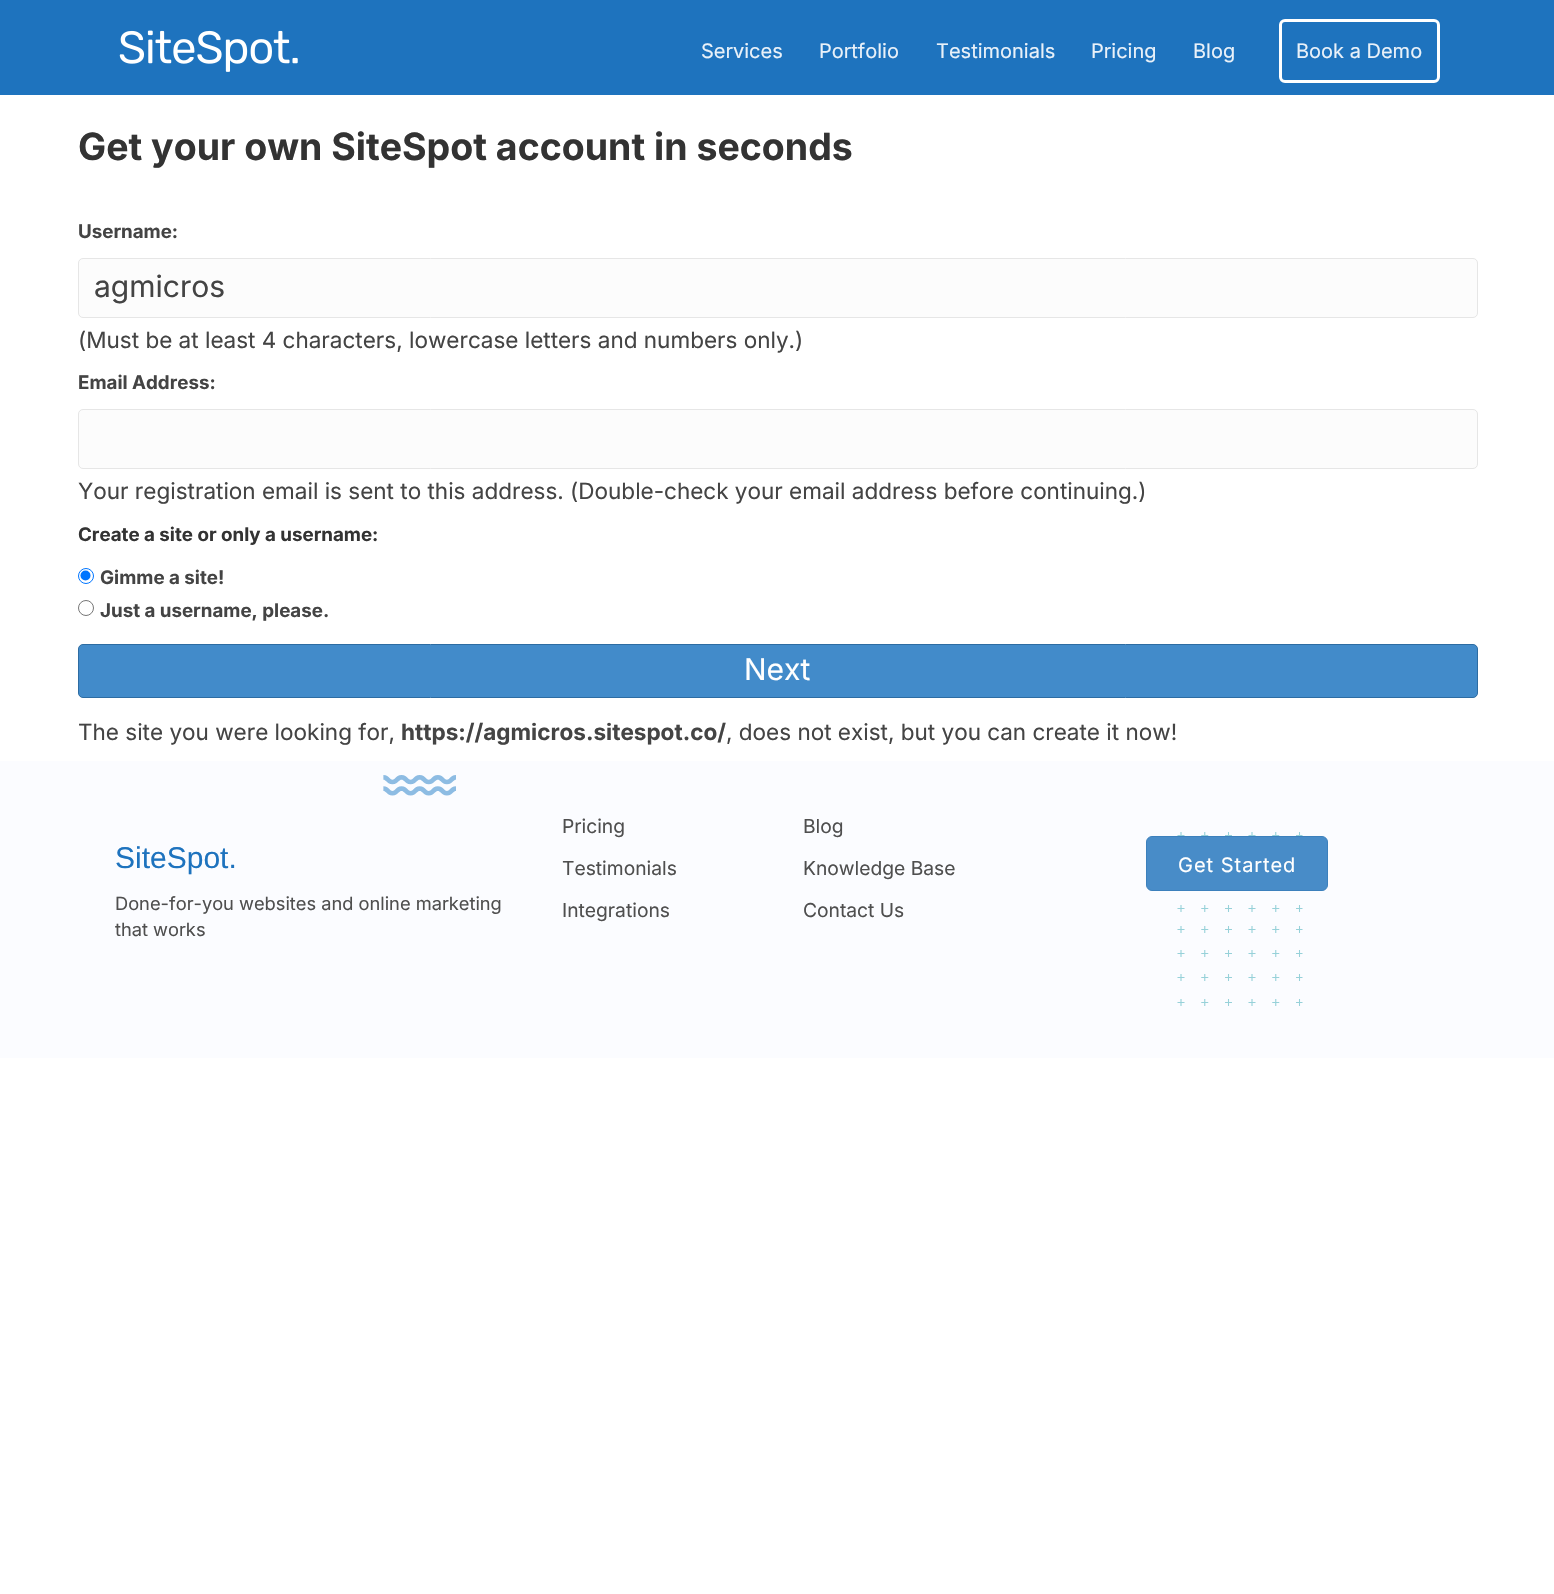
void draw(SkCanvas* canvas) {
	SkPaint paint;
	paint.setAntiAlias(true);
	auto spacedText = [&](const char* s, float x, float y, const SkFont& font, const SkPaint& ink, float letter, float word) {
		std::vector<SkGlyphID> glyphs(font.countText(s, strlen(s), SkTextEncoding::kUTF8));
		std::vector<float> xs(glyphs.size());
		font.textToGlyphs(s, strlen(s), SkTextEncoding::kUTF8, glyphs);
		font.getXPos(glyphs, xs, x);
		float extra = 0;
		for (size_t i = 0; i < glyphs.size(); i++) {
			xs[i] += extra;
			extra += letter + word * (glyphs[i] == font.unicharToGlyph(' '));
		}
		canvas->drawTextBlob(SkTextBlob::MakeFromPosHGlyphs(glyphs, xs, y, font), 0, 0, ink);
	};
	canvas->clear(0xffffffff);
	paint.setColor(0xff1e73be);
	canvas->drawRect(SkRect::MakeXYWH(0, 0, 1554, 95), paint);
	canvas->drawImageRect(SkImages::DeferredFromEncodedData(SkData::MakeFromFileName("img1.png")), SkRect::MakeXYWH(119, 30, 179, 42), SkSamplingOptions());
	SkFont f1(fontMgr->matchFamilyStyle("Inter", SkFontStyle::Normal()), 20);
	f1.setSubpixel(true);
	paint.setColor(0xffe9f1f9);
	canvas->drawString("Services", 701, 58, f1, paint);
	canvas->drawString("Portfolio", 819, 58, f1, paint);
	canvas->drawString("Testimonials", 936, 58, f1, paint);
	canvas->drawString("Pricing", 1091, 58, f1, paint);
	canvas->drawString("Blog", 1193, 58, f1, paint);
	paint.setStroke(true);
	paint.setStrokeWidth(3);
	paint.setColor(0xffffffff);
	canvas->drawRoundRect(SkRect::MakeXYWH(1280.5, 20.5, 158, 61), 4.5, 4.5, paint);
	paint.setStroke(false);
	paint.setColor(0xffe9f1f9);
	canvas->drawString("Book a Demo", 1296, 58, f1, paint);
	SkFont f2(fontMgr->matchFamilyStyle("Inter", SkFontStyle::Bold()), 37.5);
	f2.setSubpixel(true);
	paint.setColor(0xff333333);
	canvas->drawString("Get your own SiteSpot account in seconds", 78, 160, f2, paint);
	SkFont f3(fontMgr->matchFamilyStyle("Inter", SkFontStyle::Bold()), 18.75);
	f3.setSubpixel(true);
	paint.setColor(0xff444444);
	canvas->drawString("Username:", 78, 238, f3, paint);
	paint.setColor(0xfffcfcfc);
	canvas->drawRoundRect(SkRect::MakeXYWH(78.5, 258.5, 1399, 59), 4.5, 4.5, paint);
	paint.setStroke(true);
	paint.setStrokeWidth(1);
	paint.setColor(0xffe6e6e6);
	canvas->drawRoundRect(SkRect::MakeXYWH(78.5, 258.5, 1399, 59), 4.5, 4.5, paint);
	SkFont f4(fontMgr->matchFamilyStyle("Inter", SkFontStyle::Normal()), 30);
	f4.setSubpixel(true);
	paint.setStroke(false);
	paint.setColor(0xff444444);
	canvas->drawString("agmicros", 94, 297, f4, paint);
	SkFont f5(fontMgr->matchFamilyStyle("Inter", SkFontStyle::Normal()), 22.5);
	f5.setSubpixel(true);
	canvas->drawString("(Must be at least 4 characters, lowercase letters and numbers only.)", 78, 348, f5, paint);
	canvas->drawString("Email Address:", 78, 389, f3, paint);
	paint.setColor(0xfffcfcfc);
	canvas->drawRoundRect(SkRect::MakeXYWH(78.5, 409.5, 1399, 59), 4.5, 4.5, paint);
	paint.setStroke(true);
	paint.setColor(0xffe6e6e6);
	canvas->drawRoundRect(SkRect::MakeXYWH(78.5, 409.5, 1399, 59), 4.5, 4.5, paint);
	paint.setStroke(false);
	paint.setColor(0xff444444);
	canvas->drawString("Your registration email is sent to this address. (Double-check your email address before continuing.)", 78, 499, f5, paint);
	paint.setColor(0xff333333);
	canvas->drawString("Create a site or only a username:", 78, 541, f3, paint);
	paint.setStroke(true);
	paint.setColor(0xff0075ff);
	canvas->drawCircle(86, 576, 7.5, paint);
	paint.setStroke(false);
	canvas->drawCircle(85.5, 575.5, 5, paint);
	paint.setColor(0xff444444);
	canvas->drawString("Gimme a site!", 100, 584, f3, paint);
	paint.setStroke(true);
	paint.setColor(0xff767676);
	canvas->drawCircle(86, 608, 7.5, paint);
	paint.setStroke(false);
	paint.setColor(0xff444444);
	canvas->drawString("Just a username, please.", 100, 617, f3, paint);
	paint.setColor(0xff428bca);
	canvas->drawRoundRect(SkRect::MakeXYWH(78.5, 644.5, 1399, 53), 4.5, 4.5, paint);
	paint.setStroke(true);
	paint.setColor(0xff2d6ca2);
	canvas->drawRoundRect(SkRect::MakeXYWH(78.5, 644.5, 1399, 53), 4.5, 4.5, paint);
	paint.setStroke(false);
	paint.setColor(0xffffffff);
	canvas->drawString("Next", 744, 680, f4, paint);
	paint.setColor(0xff444444);
	canvas->drawString("The site you were looking for,", 78, 740, f5, paint);
	SkFont f6(fontMgr->matchFamilyStyle("Inter", SkFontStyle::Bold()), 22.5);
	f6.setSubpixel(true);
	canvas->drawString("https://agmicros.sitespot.co/", 401, 740, f6, paint);
	canvas->drawString(", does not exist, but you can create it now!", 726, 740, f5, paint);
	paint.setColor(0xfffbfcff);
	canvas->drawRect(SkRect::MakeXYWH(0, 761, 1554, 297), paint);
	canvas->drawImageRect(SkImages::DeferredFromEncodedData(SkData::MakeFromFileName("img2.png")), SkRect::MakeXYWH(383, 775, 920, 231), SkSamplingOptions());
	SkFont f7(fontMgr->matchFamilyStyle("Liberation Sans", SkFontStyle::Normal()), 30);
	f7.setSubpixel(true);
	paint.setColor(0xff1e73be);
	canvas->drawString("SiteSpot.", 115, 868, f7, paint);
	SkFont f8(fontMgr->matchFamilyStyle("Inter", SkFontStyle::Normal()), 18.25);
	f8.setSubpixel(true);
	paint.setColor(0xff4f4f4f);
	canvas->drawString("Done-for-you websites and online marketing", 115, 910, f8, paint);
	canvas->drawString("that works", 115, 936, f8, paint);
	SkFont f9(fontMgr->matchFamilyStyle("Inter", SkFontStyle::Normal()), 19.25);
	f9.setSubpixel(true);
	canvas->drawString("Pricing", 562, 833, f9, paint);
	canvas->drawString("Testimonials", 562, 875, f9, paint);
	canvas->drawString("Integrations", 562, 917, f9, paint);
	canvas->drawString("Blog", 803, 833, f9, paint);
	canvas->drawString("Knowledge Base", 803, 875, f9, paint);
	canvas->drawString("Contact Us", 803, 917, f9, paint);
	paint.setColor(0xff488cc8);
	canvas->drawRoundRect(SkRect::MakeXYWH(1146.5, 836.5, 181, 54), 5.5, 5.5, paint);
	paint.setStroke(true);
	paint.setColor(0xff3c80bc);
	canvas->drawRoundRect(SkRect::MakeXYWH(1146.5, 836.5, 181, 54), 5.5, 5.5, paint);
	paint.setStroke(false);
	paint.setColor(0xffffffff);
	spacedText("Get Started", 1178, 872, f1, paint, 1, 0);
}
